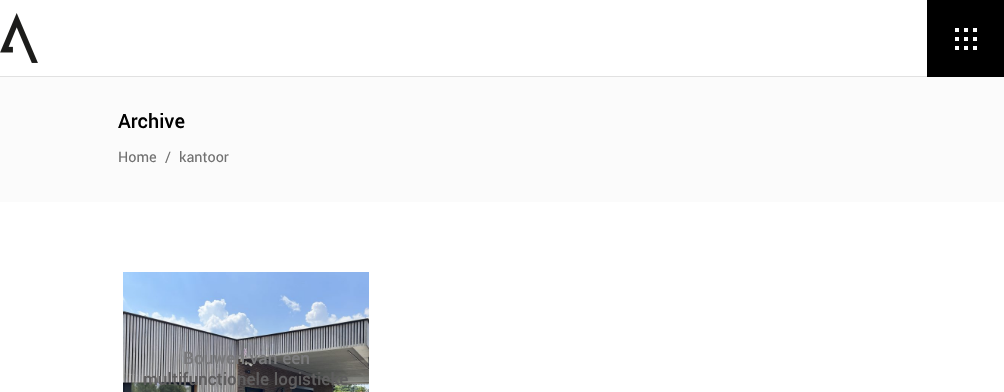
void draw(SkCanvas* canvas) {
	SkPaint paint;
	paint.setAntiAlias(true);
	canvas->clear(0xffffffff);
	paint.setColor(0xffe1e1e1);
	canvas->drawRect(SkRect::MakeXYWH(0, 76, 927, 1), paint);
	canvas->drawImageRect(SkImages::DeferredFromEncodedData(SkData::MakeFromFileName("img1.png")), SkRect::MakeXYWH(0, 13, 38, 50), SkSamplingOptions());
	paint.setColor(0xff000000);
	canvas->drawRect(SkRect::MakeXYWH(927, 0, 77, 77), paint);
	paint.setColor(0xffffffff);
	canvas->drawRect(SkRect::MakeXYWH(955, 28, 4, 4), paint);
	canvas->drawRect(SkRect::MakeXYWH(964, 28, 4, 4), paint);
	canvas->drawRect(SkRect::MakeXYWH(973, 28, 4, 4), paint);
	canvas->drawRect(SkRect::MakeXYWH(955, 37, 4, 4), paint);
	canvas->drawRect(SkRect::MakeXYWH(964, 37, 4, 4), paint);
	canvas->drawRect(SkRect::MakeXYWH(973, 37, 4, 4), paint);
	canvas->drawRect(SkRect::MakeXYWH(955, 46, 4, 4), paint);
	canvas->drawRect(SkRect::MakeXYWH(964, 46, 4, 4), paint);
	canvas->drawRect(SkRect::MakeXYWH(973, 46, 4, 4), paint);
	paint.setColor(0xfffbfbfb);
	canvas->drawRect(SkRect::MakeXYWH(0, 77, 1004, 125), paint);
	SkFont f1(fontMgr->matchFamilyStyle("Yantramanav", SkFontStyle(500, SkFontStyle::kNormal_Width, SkFontStyle::kUpright_Slant)), 22);
	f1.setSubpixel(true);
	paint.setColor(0xff000000);
	canvas->drawString("Archive", 118, 128, f1, paint);
	SkFont f2(fontMgr->matchFamilyStyle("Yantramanav", SkFontStyle::Normal()), 16);
	f2.setSubpixel(true);
	paint.setColor(0xff717171);
	canvas->drawString("Home", 118, 162, f2, paint);
	canvas->drawString("/", 165, 162, f2, paint);
	canvas->drawString("kantoor", 179, 162, f2, paint);
	canvas->drawImageRect(SkImages::DeferredFromEncodedData(SkData::MakeFromFileName("img2.png")), SkRect::MakeXYWH(123, 272, 246, 120), SkSamplingOptions());
	SkFont f3(fontMgr->matchFamilyStyle("Yantramanav", SkFontStyle(500, SkFontStyle::kNormal_Width, SkFontStyle::kUpright_Slant)), 19);
	f3.setSubpixel(true);
	paint.setColor(0xff79797b);
	canvas->drawString("Bouwen van een", 183, 364, f3, paint);
	paint.setColor(0xff5f5e5f);
	canvas->drawString("multifunctionele logistieke", 143, 385, f3, paint);
}
